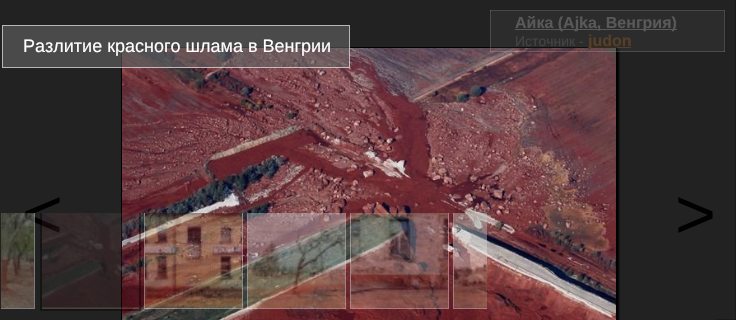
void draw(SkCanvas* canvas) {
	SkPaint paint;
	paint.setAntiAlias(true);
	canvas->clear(0xff222222);
	paint.setColor(0xff1a1a1a);
	canvas->drawRect(SkRect::MakeXYWH(735, 0, 1, 320), paint);
	canvas->drawRect(SkRect::MakeXYWH(715, 319, 21, 1), paint);
	paint.setColor(0xff000000);
	paint.setMaskFilter(SkMaskFilter::MakeBlur(kNormal_SkBlurStyle, 1));
	canvas->drawRect(SkRect::MakeXYWH(123, 49, 496, 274), paint);
	paint.setMaskFilter(nullptr);
	paint.setStroke(true);
	paint.setStrokeWidth(1);
	canvas->drawRect(SkRect::MakeXYWH(121.5, 47.5, 495, 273), paint);
	canvas->drawImageRect(SkImages::DeferredFromEncodedData(SkData::MakeFromFileName("img1.png")), SkRect::MakeXYWH(122, 48, 494, 272), SkSamplingOptions());
	paint.setStroke(false);
	paint.setColor(0x26646464);
	canvas->drawRect(SkRect::MakeXYWH(490, 11, 235, 41), paint);
	paint.setColor(0xff474747);
	canvas->drawRect(SkRect::MakeXYWH(490, 10, 235, 1), paint);
	paint.setColor(0x99595959);
	canvas->drawRect(SkRect::MakeXYWH(724, 10, 1, 42), paint);
	paint.setColor(0x26ffffff);
	canvas->drawRect(SkRect::MakeXYWH(490, 51, 235, 1), paint);
	canvas->drawRect(SkRect::MakeXYWH(490, 10, 1, 42), paint);
	paint.setColor(0xff595959);
	canvas->drawRect(SkRect::MakeXYWH(515, 29, 162, 1), paint);
	SkFont f1(fontMgr->matchFamilyStyle("Liberation Sans", SkFontStyle::Bold()), 16);
	f1.setSubpixel(true);
	canvas->drawString("Айка (Ajka, Венгрия)", 515, 28, f1, paint);
	SkFont f2(fontMgr->matchFamilyStyle("Liberation Sans", SkFontStyle::Normal()), 14);
	f2.setSubpixel(true);
	paint.setColor(0xff444444);
	canvas->drawString("Источник -", 515, 46, f2, paint);
	paint.setColor(0x40d37519);
	canvas->drawRect(SkRect::MakeXYWH(588, 47, 43, 1), paint);
	paint.setColor(0xff573f27);
	canvas->drawString("judon", 588, 46, f1, paint);
	paint.setColor(0x99646464);
	canvas->drawRect(SkRect::MakeXYWH(2, 25, 348, 43), paint);
	paint.setStroke(true);
	paint.setColor(0x99ffffff);
	canvas->drawRect(SkRect::MakeXYWH(2.5, 25.5, 347, 42), paint);
	SkFont f3(fontMgr->matchFamilyStyle("Liberation Sans", SkFontStyle::Normal()), 18);
	f3.setSubpixel(true);
	paint.setStroke(false);
	paint.setColor(0xffffffff);
	canvas->drawString("Разлитие красного шлама в Венгрии", 23, 52, f3, paint);
	SkFont f4(fontMgr->matchFamilyStyle("Liberation Sans", SkFontStyle::Normal()), 70);
	f4.setSubpixel(true);
	paint.setColor(0xff000000);
	canvas->drawString("<", 22, 238, f4, paint);
	canvas->drawString(">", 675, 238, f4, paint);
	canvas->save();
	canvas->clipRect(SkRect::MakeXYWH(1, 213, 486, 100));
	paint.setStroke(true);
	paint.setColor(0x66ffffff);
	canvas->drawRect(SkRect::MakeXYWH(-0.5, 207.5, 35, 101), paint);
	canvas->restore();
	canvas->drawImageRect(SkImages::DeferredFromEncodedData(SkData::MakeFromFileName("img2.png")), SkRect::MakeXYWH(1, 213, 33, 95), SkSamplingOptions());
	canvas->save();
	canvas->clipRect(SkRect::MakeXYWH(1, 213, 486, 100));
	paint.setStrokeWidth(2);
	paint.setColor(0x66000000);
	canvas->drawRect(SkRect::MakeXYWH(41, 208, 99, 102), paint);
	canvas->restore();
	canvas->drawImageRect(SkImages::DeferredFromEncodedData(SkData::MakeFromFileName("img3.png")), SkRect::MakeXYWH(42, 213, 97, 96), SkSamplingOptions());
	canvas->save();
	canvas->clipRect(SkRect::MakeXYWH(1, 213, 486, 100));
	paint.setStrokeWidth(1);
	paint.setColor(0x66ffffff);
	canvas->drawRect(SkRect::MakeXYWH(144.5, 207.5, 98, 101), paint);
	canvas->restore();
	canvas->drawImageRect(SkImages::DeferredFromEncodedData(SkData::MakeFromFileName("img4.png")), SkRect::MakeXYWH(145, 213, 97, 95), SkSamplingOptions());
	canvas->save();
	canvas->clipRect(SkRect::MakeXYWH(1, 213, 486, 100));
	canvas->drawRect(SkRect::MakeXYWH(247.5, 207.5, 98, 101), paint);
	canvas->restore();
	canvas->drawImageRect(SkImages::DeferredFromEncodedData(SkData::MakeFromFileName("img5.png")), SkRect::MakeXYWH(248, 213, 97, 95), SkSamplingOptions());
	canvas->save();
	canvas->clipRect(SkRect::MakeXYWH(1, 213, 486, 100));
	canvas->drawRect(SkRect::MakeXYWH(350.5, 207.5, 98, 101), paint);
	canvas->restore();
	canvas->drawImageRect(SkImages::DeferredFromEncodedData(SkData::MakeFromFileName("img6.png")), SkRect::MakeXYWH(351, 213, 97, 95), SkSamplingOptions());
	canvas->save();
	canvas->clipRect(SkRect::MakeXYWH(1, 213, 486, 100));
	canvas->drawRect(SkRect::MakeXYWH(453.5, 207.5, 98, 101), paint);
	canvas->restore();
	canvas->drawImageRect(SkImages::DeferredFromEncodedData(SkData::MakeFromFileName("img7.png")), SkRect::MakeXYWH(454, 213, 33, 95), SkSamplingOptions());
}
